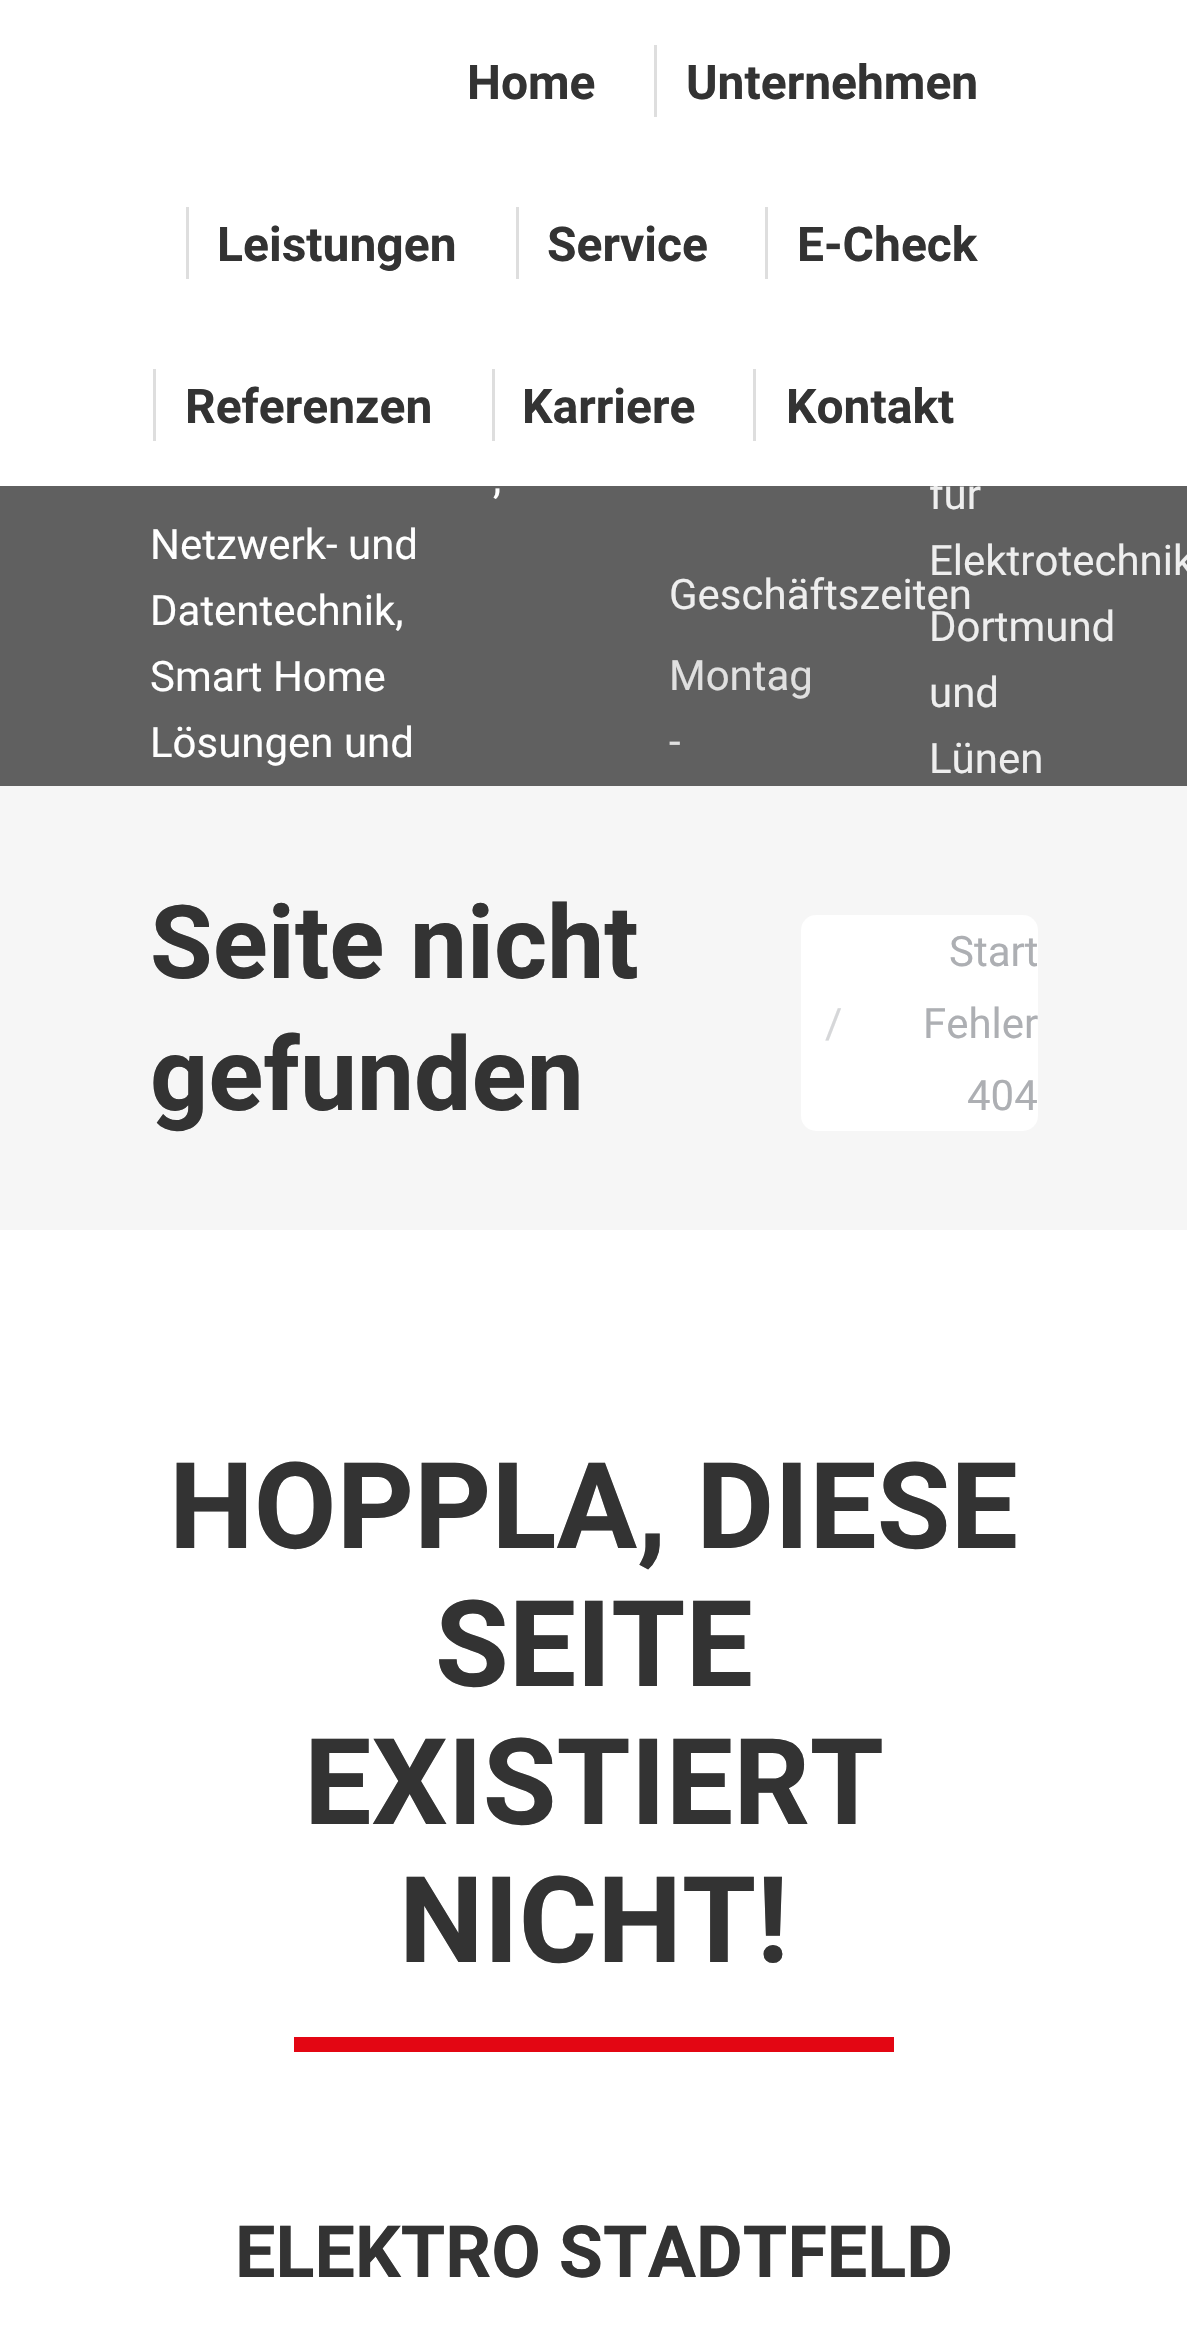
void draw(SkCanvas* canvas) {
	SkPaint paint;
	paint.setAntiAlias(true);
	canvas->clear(0xff606060);
	SkFont f1(fontMgr->matchFamilyStyle("Roboto", SkFontStyle::Normal()), 42);
	f1.setSubpixel(true);
	paint.setColor(0xffeeeeee);
	canvas->drawString("für", 929, 509, f1, paint);
	paint.setColor(0xffffffff);
	canvas->drawRect(SkRect::MakeXYWH(0, 0, 1187, 486), paint);
	SkFont f2(fontMgr->matchFamilyStyle("Roboto", SkFontStyle::Bold()), 48);
	f2.setSubpixel(true);
	paint.setColor(0xff333333);
	canvas->drawString("Home", 467, 99, f2, paint);
	paint.setColor(0xffdedede);
	canvas->drawRect(SkRect::MakeXYWH(654, 45, 3, 72), paint);
	paint.setColor(0xff333333);
	canvas->drawString("Unternehmen", 686, 99, f2, paint);
	paint.setColor(0xffdedede);
	canvas->drawRect(SkRect::MakeXYWH(186, 207, 3, 72), paint);
	paint.setColor(0xff333333);
	canvas->drawString("Leistungen", 217, 261, f2, paint);
	paint.setColor(0xffdedede);
	canvas->drawRect(SkRect::MakeXYWH(516, 207, 3, 72), paint);
	paint.setColor(0xff333333);
	canvas->drawString("Service", 547, 261, f2, paint);
	paint.setColor(0xffdedede);
	canvas->drawRect(SkRect::MakeXYWH(765, 207, 3, 72), paint);
	paint.setColor(0xff333333);
	canvas->drawString("E-Check", 797, 261, f2, paint);
	paint.setColor(0xffdedede);
	canvas->drawRect(SkRect::MakeXYWH(153, 369, 3, 72), paint);
	paint.setColor(0xff333333);
	canvas->drawString("Referenzen", 185, 423, f2, paint);
	paint.setColor(0xffdedede);
	canvas->drawRect(SkRect::MakeXYWH(492, 369, 3, 72), paint);
	paint.setColor(0xff333333);
	canvas->drawString("Karriere", 522, 423, f2, paint);
	paint.setColor(0xffdedede);
	canvas->drawRect(SkRect::MakeXYWH(753, 369, 3, 72), paint);
	paint.setColor(0xff333333);
	canvas->drawString("Kontakt", 786, 423, f2, paint);
	paint.setColor(0xffffffff);
	canvas->drawString(",", 493, 493, f1, paint);
	canvas->drawString("Netzwerk- und", 150, 559, f1, paint);
	canvas->drawString("Datentechnik,", 150, 625, f1, paint);
	canvas->drawString("Smart Home", 150, 691, f1, paint);
	canvas->drawString("Lösungen und", 150, 757, f1, paint);
	paint.setColor(0xffeeeeee);
	canvas->drawString("Geschäftszeiten", 669, 609, f1, paint);
	paint.setColor(0xffe0e0e0);
	canvas->drawString("Montag", 669, 690, f1, paint);
	canvas->drawString("-", 669, 756, f1, paint);
	paint.setColor(0xffeeeeee);
	canvas->drawString("Elektrotechnik", 929, 575, f1, paint);
	canvas->drawString("Dortmund", 929, 641, f1, paint);
	canvas->drawString("und", 929, 707, f1, paint);
	canvas->drawString("Lünen", 929, 773, f1, paint);
	paint.setColor(0xffffffff);
	canvas->drawRect(SkRect::MakeXYWH(0, 1230, 1187, 1099), paint);
	paint.setColor(0xfff6f6f6);
	canvas->drawRect(SkRect::MakeXYWH(0, 786, 1187, 444), paint);
	SkFont f3(fontMgr->matchFamilyStyle("Roboto", SkFontStyle::Bold()), 102);
	f3.setSubpixel(true);
	paint.setColor(0xff333333);
	canvas->drawString("Seite nicht", 150, 978, f3, paint);
	canvas->drawString("gefunden", 150, 1110, f3, paint);
	paint.setColor(0xffffffff);
	canvas->drawRoundRect(SkRect::MakeXYWH(801, 915, 237, 216), 15, 15, paint);
	paint.setColor(0xffadafb3);
	canvas->drawString("Start", 949, 966, f1, paint);
	paint.setColor(0xffd6d7d9);
	canvas->drawString("/", 825, 1038, f1, paint);
	paint.setColor(0xffadafb3);
	canvas->drawString("Fehler", 923, 1038, f1, paint);
	canvas->drawString("404", 967, 1110, f1, paint);
	SkFont f4(fontMgr->matchFamilyStyle("Roboto", SkFontStyle::Bold()), 120);
	f4.setSubpixel(true);
	paint.setColor(0xff333333);
	canvas->drawString("HOPPLA, DIESE", 169, 1548, f4, paint);
	canvas->drawString("SEITE", 435, 1686, f4, paint);
	canvas->drawString("EXISTIERT", 304, 1824, f4, paint);
	canvas->drawString("NICHT!", 399, 1962, f4, paint);
	paint.setColor(0xffe30613);
	canvas->drawRect(SkRect::MakeXYWH(294, 2037, 600, 15), paint);
	SkFont f5(fontMgr->matchFamilyStyle("Roboto", SkFontStyle::Bold()), 72);
	f5.setSubpixel(true);
	paint.setColor(0xff333333);
	canvas->drawString("ELEKTRO STADTFELD", 235, 2277, f5, paint);
}
